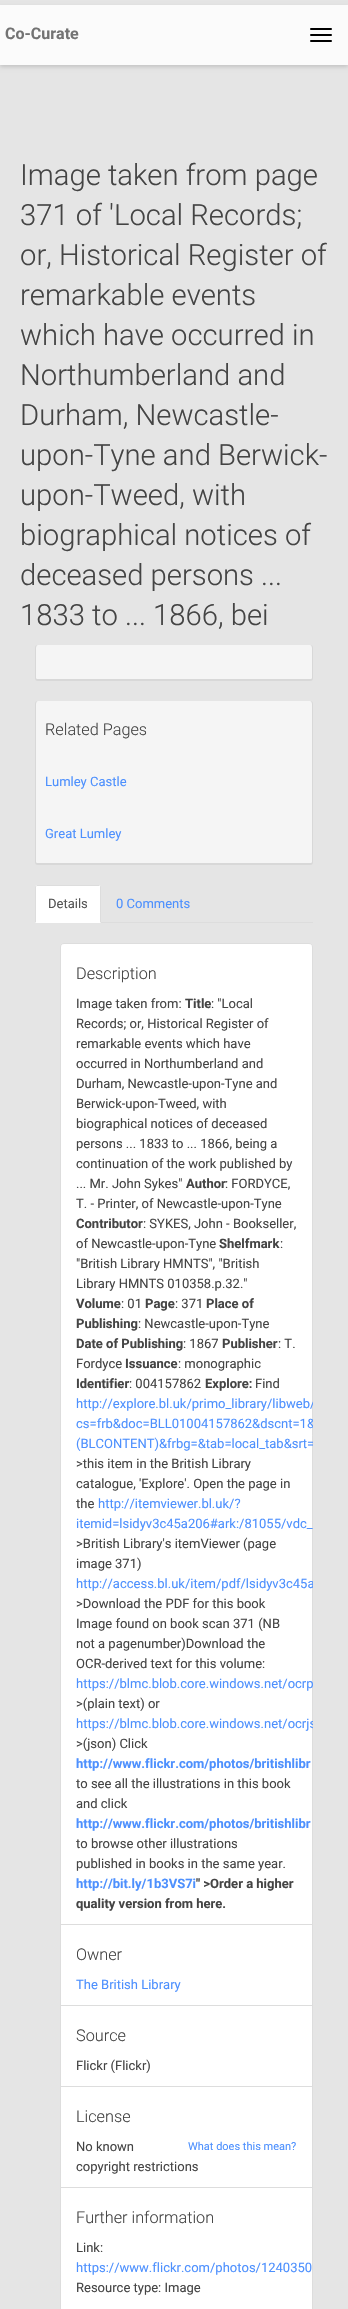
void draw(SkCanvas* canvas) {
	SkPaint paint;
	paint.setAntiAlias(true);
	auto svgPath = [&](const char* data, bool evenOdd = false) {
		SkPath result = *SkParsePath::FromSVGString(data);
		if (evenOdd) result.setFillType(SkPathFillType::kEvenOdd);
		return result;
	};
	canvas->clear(0xffe5e5e5);
	paint.setColor(0x26000000);
	paint.setMaskFilter(SkMaskFilter::MakeBlur(kNormal_SkBlurStyle, 2));
	canvas->drawRect(SkRect::MakeXYWH(0, 7, 348, 60), paint);
	paint.setMaskFilter(nullptr);
	paint.setColor(0xfffbfbfb);
	canvas->drawRect(SkRect::MakeXYWH(0, 5, 348, 60), paint);
	SkFont f1(fontMgr->matchFamilyStyle("Roboto", SkFontStyle::Bold()), 16);
	f1.setSubpixel(true);
	paint.setColor(0xff737373);
	canvas->drawString("Co-Curate", 5, 39, f1, paint);
	paint.setColor(0xff000000);
	canvas->drawRoundRect(SkRect::MakeXYWH(310, 28, 22, 2), 1, 1, paint);
	canvas->drawRoundRect(SkRect::MakeXYWH(310, 34, 22, 2), 1, 1, paint);
	canvas->drawRoundRect(SkRect::MakeXYWH(310, 40, 22, 2), 1, 1, paint);
	SkFont f2(fontMgr->matchFamilyStyle("Roboto", SkFontStyle(300, SkFontStyle::kNormal_Width, SkFontStyle::kUpright_Slant)), 29.25);
	f2.setSubpixel(true);
	paint.setColor(0xff444444);
	canvas->drawString("Image taken from page", 20, 185, f2, paint);
	canvas->drawString("371 of 'Local Records;", 20, 225, f2, paint);
	canvas->drawString("or, Historical Register of", 20, 265, f2, paint);
	canvas->drawString("remarkable events", 20, 305, f2, paint);
	canvas->drawString("which have occurred in", 20, 345, f2, paint);
	canvas->drawString("Northumberland and", 20, 385, f2, paint);
	canvas->drawString("Durham, Newcastle-", 20, 425, f2, paint);
	canvas->drawString("upon-Tyne and Berwick-", 20, 465, f2, paint);
	canvas->drawString("upon-Tweed, with", 20, 505, f2, paint);
	canvas->drawString("biographical notices of", 20, 545, f2, paint);
	canvas->drawString("deceased persons ...", 20, 585, f2, paint);
	canvas->drawString("1833 to ... 1866, bei", 20, 625, f2, paint);
	paint.setColor(0xfff5f5f5);
	canvas->drawPath(svgPath("M38 645H310C311 645 312 646 312 648V678C312 679 311 679 310 679H38C37 679 36 679 36 678V648C36 646 37 645 38 645Z"), paint);
	paint.setColor(0xffd8d8d8);
	canvas->drawPath(svgPath("M38 645H310C312 645 313 646 313 648V678C313 680 312 681 310 681H38C36 681 35 680 35 678V648C35 646 36 645 38 645ZM38 645H310C311 645 312 646 312 648V678C312 679 311 679 310 679H38C37 679 36 679 36 678V648C36 646 37 645 38 645Z", true), paint);
	paint.setColor(0xfff5f5f5);
	canvas->drawPath(svgPath("M38 701H310C311 701 312 702 312 704V862C312 863 311 863 310 863H38C37 863 36 863 36 862V704C36 702 37 701 38 701Z"), paint);
	paint.setColor(0xffd8d8d8);
	canvas->drawPath(svgPath("M38 701H310C312 701 313 702 313 704V862C313 864 312 865 310 865H38C36 865 35 864 35 862V704C35 702 36 701 38 701ZM38 701H310C311 701 312 702 312 704V862C312 863 311 863 310 863H38C37 863 36 863 36 862V704C36 702 37 701 38 701Z", true), paint);
	SkFont f3(fontMgr->matchFamilyStyle("Roboto", SkFontStyle(300, SkFontStyle::kNormal_Width, SkFontStyle::kUpright_Slant)), 16.25);
	f3.setSubpixel(true);
	paint.setColor(0xff444444);
	canvas->drawString("Related Pages", 45, 735, f3, paint);
	SkFont f4(fontMgr->matchFamilyStyle("Roboto", SkFontStyle::Normal()), 13);
	f4.setSubpixel(true);
	paint.setColor(0xff4d90fe);
	canvas->drawString("Lumley Castle", 45, 786, f4, paint);
	canvas->drawString("Great Lumley", 45, 838, f4, paint);
	paint.setColor(0xffdddddd);
	canvas->drawRect(SkRect::MakeXYWH(101, 922, 212, 1), paint);
	paint.setColor(0xffffffff);
	canvas->drawPath(svgPath("M37 885H99C100 885 101 886 101 887V923H35V887C35 886 36 885 37 885Z"), paint);
	paint.setColor(0xffdddddd);
	canvas->drawPath(svgPath("M37 885L36 886H37H100L99 885Z"), paint);
	canvas->drawPath(svgPath("M101 923V887L100.5 885.5L100 886V922Z"), paint);
	canvas->drawPath(svgPath("M35 923L36 922V887L36.5 886.5L35.5 885.5L35 887Z"), paint);
	paint.setColor(0xff555555);
	canvas->drawString("Details", 48, 908, f4, paint);
	paint.setColor(0xff4d90fe);
	canvas->drawString("0 Comments", 116, 908, f4, paint);
	paint.setColor(0xffffffff);
	canvas->drawPath(svgPath("M64 943.5H309C311 943.5 312.5 945 312.5 947V1924.5H60.5V947C60.5 945 62 943.5 64 943.5Z"), paint);
	paint.setStroke(true);
	paint.setStrokeWidth(1);
	paint.setColor(0xffdddddd);
	canvas->drawPath(svgPath("M64 943.5H309C311 943.5 312.5 945 312.5 947V1924.5H60.5V947C60.5 945 62 943.5 64 943.5Z"), paint);
	paint.setStroke(false);
	paint.setColor(0xff444444);
	canvas->drawString("Description", 76, 979, f3, paint);
	canvas->drawString("Image taken from:", 76, 1008, f4, paint);
	SkFont f5(fontMgr->matchFamilyStyle("Roboto", SkFontStyle::Bold()), 13);
	f5.setSubpixel(true);
	canvas->drawString("Title", 185, 1008, f5, paint);
	canvas->drawString(": \"Local", 211, 1008, f4, paint);
	canvas->drawString("Records; or, Historical Register of", 76, 1028, f4, paint);
	canvas->drawString("remarkable events which have", 76, 1048, f4, paint);
	canvas->drawString("occurred in Northumberland and", 76, 1068, f4, paint);
	canvas->drawString("Durham, Newcastle-upon-Tyne and", 76, 1088, f4, paint);
	canvas->drawString("Berwick-upon-Tweed, with", 76, 1108, f4, paint);
	canvas->drawString("biographical notices of deceased", 76, 1128, f4, paint);
	canvas->drawString("persons ... 1833 to ... 1866, being a", 76, 1148, f4, paint);
	canvas->drawString("continuation of the work published by", 76, 1168, f4, paint);
	canvas->drawString("... Mr. John Sykes\"", 76, 1188, f4, paint);
	canvas->drawString("Author", 186, 1188, f5, paint);
	canvas->drawString(": FORDYCE,", 225, 1188, f4, paint);
	canvas->drawString("T. - Printer, of Newcastle-upon-Tyne", 76, 1208, f4, paint);
	canvas->drawString("Contributor", 76, 1228, f5, paint);
	canvas->drawString(": SYKES, John - Bookseller,", 143, 1228, f4, paint);
	canvas->drawString("of Newcastle-upon-Tyne", 76, 1248, f4, paint);
	canvas->drawString("Shelfmark", 219, 1248, f5, paint);
	canvas->drawString(":", 280, 1248, f4, paint);
	canvas->drawString("\"British Library HMNTS\", \"British", 76, 1268, f4, paint);
	canvas->drawString("Library HMNTS 010358.p.32.\"", 76, 1288, f4, paint);
	canvas->drawString("Volume", 76, 1308, f5, paint);
	canvas->drawString(": 01", 121, 1308, f4, paint);
	canvas->drawString("Page", 145, 1308, f5, paint);
	canvas->drawString(": 371", 175, 1308, f4, paint);
	canvas->drawString("Place of", 206, 1308, f5, paint);
	canvas->drawString("Publishing", 76, 1328, f5, paint);
	canvas->drawString(": Newcastle-upon-Tyne", 138, 1328, f4, paint);
	canvas->drawString("Date of Publishing", 76, 1348, f5, paint);
	canvas->drawString(": 1867", 183, 1348, f4, paint);
	canvas->drawString("Publisher", 222, 1348, f5, paint);
	canvas->drawString(": T.", 278, 1348, f4, paint);
	canvas->drawString("Fordyce", 76, 1368, f4, paint);
	canvas->drawString("Issuance", 125, 1368, f5, paint);
	canvas->drawString(": monographic", 178, 1368, f4, paint);
	canvas->drawString("Identifier", 76, 1388, f5, paint);
	canvas->drawString(": 004157862", 129, 1388, f4, paint);
	canvas->drawString("Explore:", 205, 1388, f5, paint);
	canvas->drawString("Find", 255, 1388, f4, paint);
	canvas->save();
	canvas->clipRect(SkRect::MakeXYWH(35, 943, 278, 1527));
	paint.setColor(0xff4d90fe);
	canvas->drawString("http://explore.bl.uk/primo_library/libweb/", 76, 1408, f4, paint);
	canvas->drawString("cs=frb&doc=BLL01004157862&dscnt=1&", 76, 1428, f4, paint);
	canvas->drawString("(BLCONTENT)&frbg=&tab=local_tab&srt=", 76, 1448, f4, paint);
	canvas->restore();
	paint.setColor(0xff444444);
	canvas->drawString(">this item in the British Library", 76, 1468, f4, paint);
	canvas->drawString("catalogue, 'Explore'. Open the page in", 76, 1488, f4, paint);
	canvas->drawString("the", 76, 1508, f4, paint);
	paint.setColor(0xff4d90fe);
	canvas->drawString("http://itemviewer.bl.uk/?", 98, 1508, f4, paint);
	canvas->drawString("itemid=lsidyv3c45a206#ark:/81055/vdc_", 76, 1528, f4, paint);
	paint.setColor(0xff444444);
	canvas->drawString(">British Library's itemViewer (page", 76, 1548, f4, paint);
	canvas->drawString("image 371)", 76, 1568, f4, paint);
	canvas->save();
	canvas->clipRect(SkRect::MakeXYWH(35, 943, 278, 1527));
	paint.setColor(0xff4d90fe);
	canvas->drawString("http://access.bl.uk/item/pdf/lsidyv3c45a", 76, 1588, f4, paint);
	canvas->restore();
	paint.setColor(0xff444444);
	canvas->drawString(">Download the PDF for this book", 76, 1608, f4, paint);
	canvas->drawString("Image found on book scan 371 (NB", 76, 1628, f4, paint);
	canvas->drawString("not a pagenumber)Download the", 76, 1648, f4, paint);
	canvas->drawString("OCR-derived text for this volume:", 76, 1668, f4, paint);
	paint.setColor(0xff4d90fe);
	canvas->drawString("https://blmc.blob.core.windows.net/ocrp", 76, 1688, f4, paint);
	paint.setColor(0xff444444);
	canvas->drawString(">(plain text) or", 76, 1708, f4, paint);
	canvas->save();
	canvas->clipRect(SkRect::MakeXYWH(35, 943, 278, 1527));
	paint.setColor(0xff4d90fe);
	canvas->drawString("https://blmc.blob.core.windows.net/ocrjs", 76, 1728, f4, paint);
	canvas->restore();
	paint.setColor(0xff444444);
	canvas->drawString(">(json) Click", 76, 1748, f4, paint);
	paint.setColor(0xff4d90fe);
	canvas->drawString("http://www.flickr.com/photos/britishlibr", 76, 1768, f5, paint);
	paint.setColor(0xff444444);
	canvas->drawString("to see all the illustrations in this book", 76, 1788, f4, paint);
	canvas->drawString("and click", 76, 1808, f4, paint);
	paint.setColor(0xff4d90fe);
	canvas->drawString("http://www.flickr.com/photos/britishlibr", 76, 1828, f5, paint);
	paint.setColor(0xff444444);
	canvas->drawString("to browse other illustrations", 76, 1848, f4, paint);
	canvas->drawString("published in books in the same year.", 76, 1868, f4, paint);
	paint.setColor(0xff4d90fe);
	canvas->drawString("http://bit.ly/1b3VS7i", 76, 1888, f5, paint);
	paint.setColor(0xff444444);
	canvas->drawString("\" >Order a higher", 196, 1888, f5, paint);
	canvas->drawString("quality version from here.", 76, 1908, f5, paint);
	paint.setColor(0xffffffff);
	canvas->drawRect(SkRect::MakeXYWH(60.5, 1924.5, 252, 81), paint);
	paint.setStroke(true);
	paint.setColor(0xffdddddd);
	canvas->drawRect(SkRect::MakeXYWH(60.5, 1924.5, 252, 81), paint);
	paint.setStroke(false);
	paint.setColor(0xff444444);
	canvas->drawString("Owner", 76, 1960, f3, paint);
	paint.setColor(0xff4d90fe);
	canvas->drawString("The British Library", 76, 1989, f4, paint);
	paint.setColor(0xffffffff);
	canvas->drawRect(SkRect::MakeXYWH(60.5, 2005.5, 252, 81), paint);
	paint.setStroke(true);
	paint.setColor(0xffdddddd);
	canvas->drawRect(SkRect::MakeXYWH(60.5, 2005.5, 252, 81), paint);
	paint.setStroke(false);
	paint.setColor(0xff444444);
	canvas->drawString("Source", 76, 2041, f3, paint);
	canvas->drawString("Flickr (Flickr)", 76, 2070, f4, paint);
	paint.setColor(0xffffffff);
	canvas->drawRect(SkRect::MakeXYWH(60.5, 2086.5, 252, 101), paint);
	paint.setStroke(true);
	paint.setColor(0xffdddddd);
	canvas->drawRect(SkRect::MakeXYWH(60.5, 2086.5, 252, 101), paint);
	paint.setStroke(false);
	paint.setColor(0xff444444);
	canvas->drawString("License", 76, 2122, f3, paint);
	canvas->drawString("No known", 76, 2151, f4, paint);
	SkFont f6(fontMgr->matchFamilyStyle("Roboto", SkFontStyle::Normal()), 11);
	f6.setSubpixel(true);
	paint.setColor(0xff4d90fe);
	canvas->drawString("What does this mean?", 188, 2150, f6, paint);
	paint.setColor(0xff444444);
	canvas->drawString("copyright restrictions", 76, 2171, f4, paint);
	paint.setColor(0xffffffff);
	canvas->drawRect(SkRect::MakeXYWH(60.5, 2187.5, 252, 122), paint);
	paint.setStroke(true);
	paint.setColor(0xffdddddd);
	canvas->drawRect(SkRect::MakeXYWH(60.5, 2187.5, 252, 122), paint);
	paint.setStroke(false);
	paint.setColor(0xff444444);
	canvas->drawString("Further information", 76, 2223, f3, paint);
	canvas->drawString("Link:", 76, 2252, f4, paint);
	paint.setColor(0xff4d90fe);
	canvas->drawString("https://www.flickr.com/photos/1240350", 76, 2272, f4, paint);
	paint.setColor(0xff444444);
	canvas->drawString("Resource type: Image", 76, 2292, f4, paint);
}
